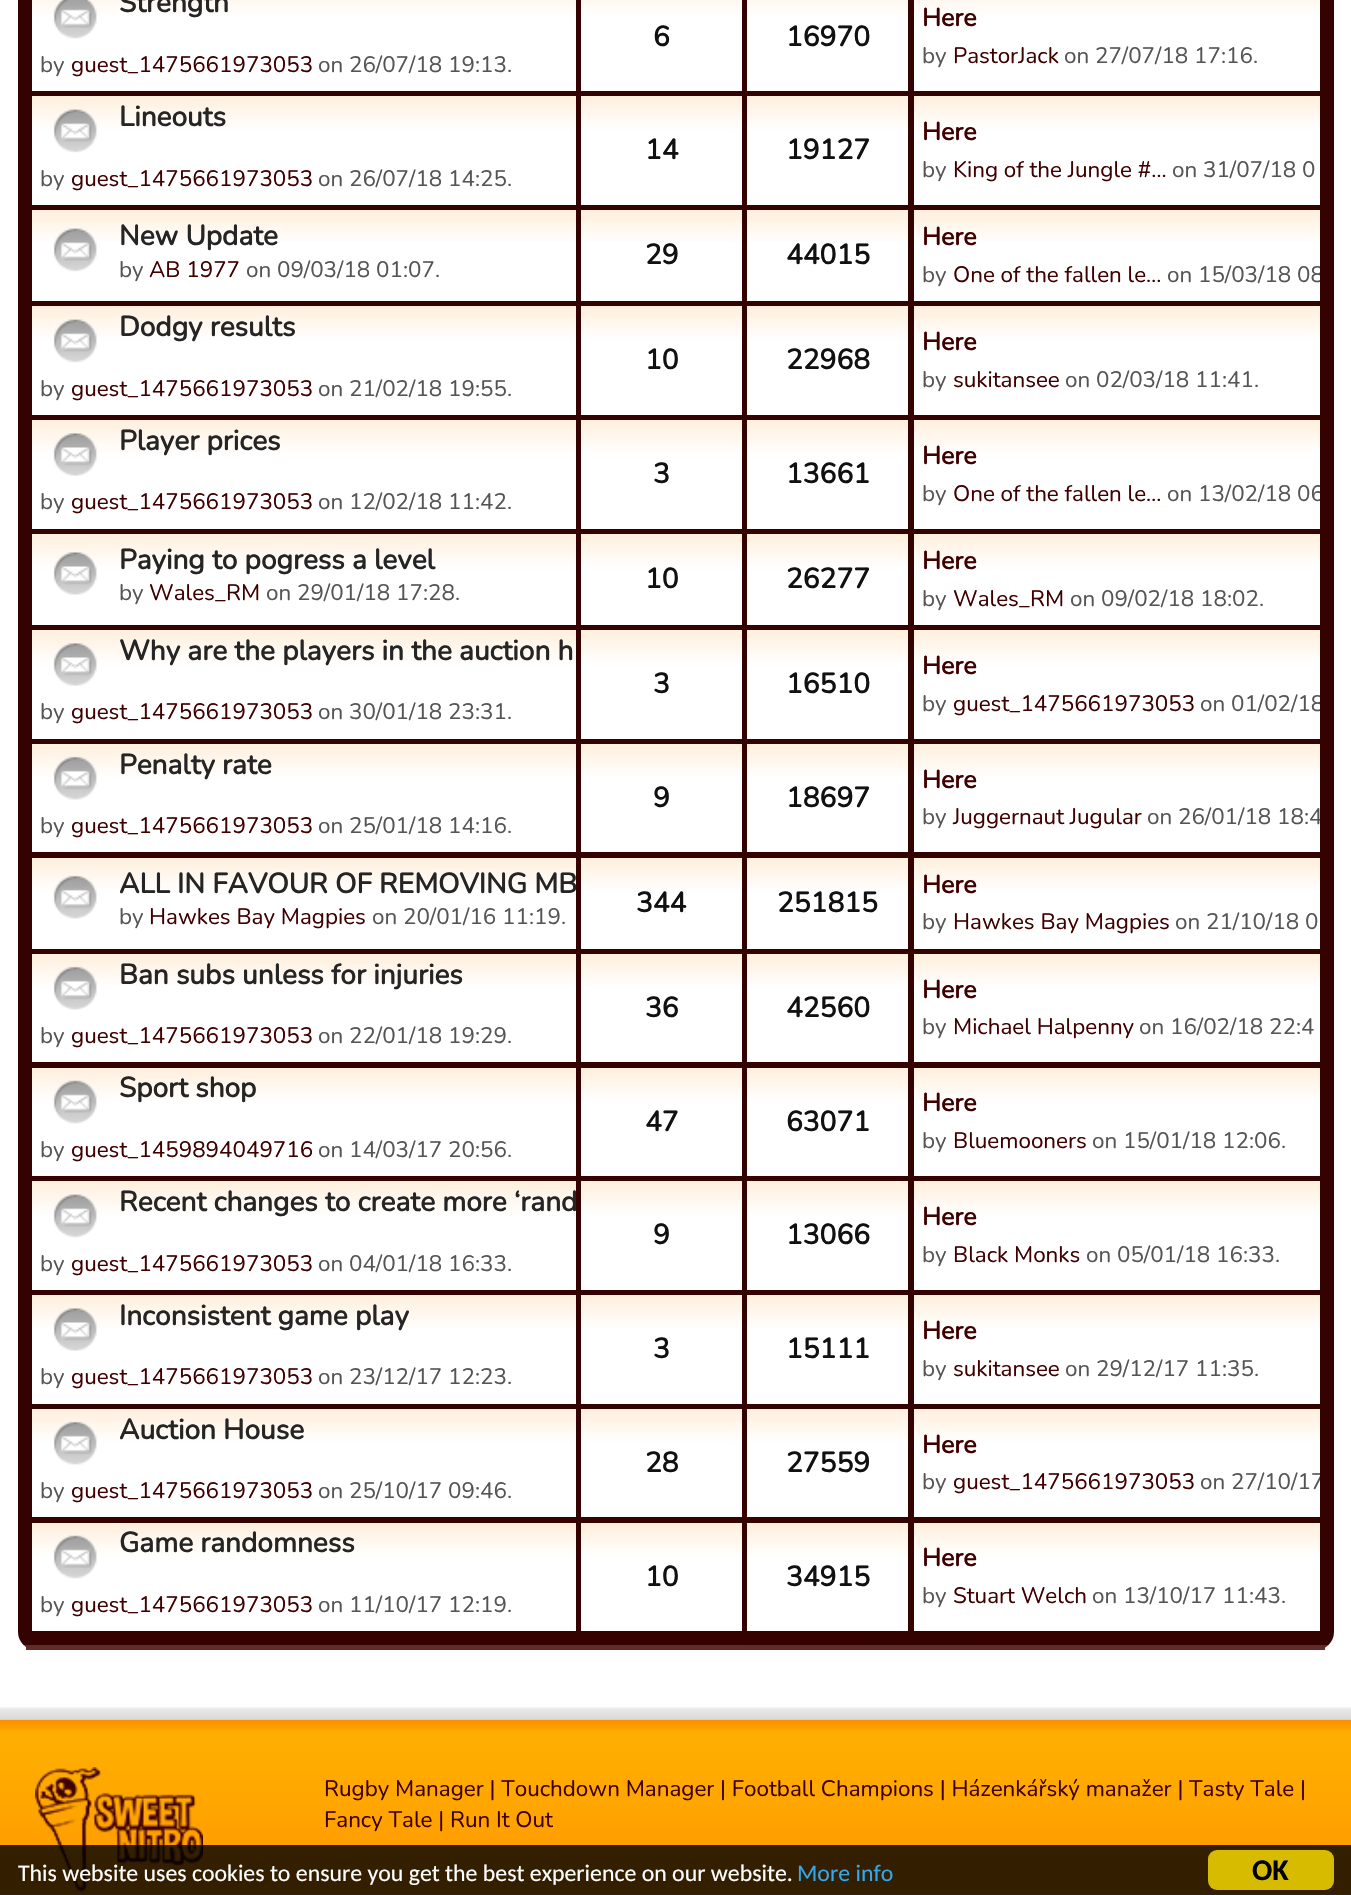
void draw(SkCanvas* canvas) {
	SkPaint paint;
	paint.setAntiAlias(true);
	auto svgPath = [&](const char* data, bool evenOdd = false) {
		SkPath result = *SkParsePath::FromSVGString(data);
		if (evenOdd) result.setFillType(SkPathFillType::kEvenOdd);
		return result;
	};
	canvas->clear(0xffffffff);
	canvas->drawImageRect(SkImages::DeferredFromEncodedData(SkData::MakeFromFileName("img1.png")), SkRect::MakeXYWH(0, 1707, 1351, 13), SkSamplingOptions());
	canvas->save();
	canvas->clipPath(svgPath("M36-632H1316C1326-632 1334-624 1334-614V1632C1334 1642 1326 1650 1316 1650H36C26 1650 18 1642 18 1632V-614C18-624 26-632 36-632Z"), true);
	{
		const SkColor colors[] = {0xff602c2c, 0xff350202};
		const float stops[] = {0, 0.02};
		const SkPoint ends[] = {{675, -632}, {676, 1645}};
		paint.setShader(SkGradientShader::MakeLinear(ends, colors, stops, 2, SkTileMode::kClamp));
		paint.setAlpha(255);
	}
	canvas->drawPath(svgPath("M36-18H1316C1326-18 1334-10 1334 0V1645H18V0C18-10 26-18 36-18Z"), paint);
	{
		const SkColor colors[] = {0xff602c2c, 0xff350202};
		const float stops[] = {0, 0.02};
		const SkPoint ends[] = {{675, 1645}, {676, 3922}};
		paint.setShader(SkGradientShader::MakeLinear(ends, colors, stops, 2, SkTileMode::kClamp));
		paint.setAlpha(255);
	}
	canvas->drawRect(SkRect::MakeXYWH(18, 1645, 1316, 3), paint);
	canvas->restore();
	paint.setShader(nullptr);
	paint.setColor(0xff602c2c);
	canvas->drawRect(SkRect::MakeXYWH(26, 1647, 1299, 3), paint);
	{
		const SkColor colors[] = {0xffffefdd, 0xffffffff};
		const float stops[] = {0, 0.32};
		const SkPoint ends[] = {{304, -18}, {304, 91}};
		paint.setShader(SkGradientShader::MakeLinear(ends, colors, stops, 2, SkTileMode::kClamp));
		paint.setAlpha(255);
	}
	canvas->drawRect(SkRect::MakeXYWH(32, 0, 544, 91), paint);
	canvas->drawImageRect(SkImages::DeferredFromEncodedData(SkData::MakeFromFileName("img2.png")), SkRect::MakeXYWH(53, 0, 44, 39), SkSamplingOptions());
	SkFont f1(fontMgr->matchFamilyStyle("Nunito", SkFontStyle::Bold()), 28);
	f1.setSubpixel(true);
	paint.setShader(nullptr);
	paint.setColor(0xff252525);
	canvas->drawString("Strength", 119, 12, f1, paint);
	SkFont f2(fontMgr->matchFamilyStyle("Nunito", SkFontStyle(200, SkFontStyle::kNormal_Width, SkFontStyle::kUpright_Slant)), 22.4);
	f2.setSubpixel(true);
	paint.setColor(0xff555555);
	canvas->drawString("by", 40, 72, f2, paint);
	paint.setColor(0xff3f0000);
	canvas->drawString("guest_1475661973053", 71, 72, f2, paint);
	paint.setColor(0xff555555);
	canvas->drawString("on 26/07/18 19:13.", 318, 72, f2, paint);
	{
		const SkColor colors[] = {0xffffefdd, 0xffffffff};
		const float stops[] = {0, 0.32};
		const SkPoint ends[] = {{662, -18}, {662, 91}};
		paint.setShader(SkGradientShader::MakeLinear(ends, colors, stops, 2, SkTileMode::kClamp));
		paint.setAlpha(255);
	}
	canvas->drawRect(SkRect::MakeXYWH(581, 0, 161, 91), paint);
	paint.setShader(nullptr);
	paint.setColor(0xff111111);
	canvas->drawString("6", 653, 46, f1, paint);
	{
		const SkColor colors[] = {0xffffefdd, 0xffffffff};
		const float stops[] = {0, 0.32};
		const SkPoint ends[] = {{828, -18}, {828, 91}};
		paint.setShader(SkGradientShader::MakeLinear(ends, colors, stops, 2, SkTileMode::kClamp));
		paint.setAlpha(255);
	}
	canvas->drawRect(SkRect::MakeXYWH(747, 0, 161, 91), paint);
	paint.setShader(nullptr);
	paint.setColor(0xff111111);
	canvas->drawString("16970", 786, 46, f1, paint);
	{
		const SkColor colors[] = {0xffffefdd, 0xffffffff};
		const float stops[] = {0, 0.32};
		const SkPoint ends[] = {{1117, -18}, {1117, 91}};
		paint.setShader(SkGradientShader::MakeLinear(ends, colors, stops, 2, SkTileMode::kClamp));
		paint.setAlpha(255);
	}
	canvas->drawRect(SkRect::MakeXYWH(914, 0, 406, 91), paint);
	SkFont f3(fontMgr->matchFamilyStyle("Nunito", SkFontStyle::Bold()), 25);
	f3.setSubpixel(true);
	paint.setShader(nullptr);
	paint.setColor(0xff3f0000);
	canvas->drawString("Here", 922, 26, f3, paint);
	paint.setColor(0xff555555);
	canvas->drawString("by", 922, 63, f2, paint);
	paint.setColor(0xff3f0000);
	canvas->drawString("PastorJack", 953, 63, f2, paint);
	paint.setColor(0xff555555);
	canvas->drawString("on 27/07/18 17:16.", 1064, 63, f2, paint);
	{
		const SkColor colors[] = {0xffffefdd, 0xffffffff};
		const float stops[] = {0, 0.32};
		const SkPoint ends[] = {{304, 96}, {304, 205}};
		paint.setShader(SkGradientShader::MakeLinear(ends, colors, stops, 2, SkTileMode::kClamp));
		paint.setAlpha(255);
	}
	canvas->drawRect(SkRect::MakeXYWH(32, 96, 544, 109), paint);
	canvas->drawImageRect(SkImages::DeferredFromEncodedData(SkData::MakeFromFileName("img3.png")), SkRect::MakeXYWH(53, 109, 44, 44), SkSamplingOptions());
	paint.setShader(nullptr);
	paint.setColor(0xff252525);
	canvas->drawString("Lineouts", 119, 126, f1, paint);
	paint.setColor(0xff555555);
	canvas->drawString("by", 40, 186, f2, paint);
	paint.setColor(0xff3f0000);
	canvas->drawString("guest_1475661973053", 71, 186, f2, paint);
	paint.setColor(0xff555555);
	canvas->drawString("on 26/07/18 14:25.", 318, 186, f2, paint);
	{
		const SkColor colors[] = {0xffffefdd, 0xffffffff};
		const float stops[] = {0, 0.32};
		const SkPoint ends[] = {{662, 96}, {662, 205}};
		paint.setShader(SkGradientShader::MakeLinear(ends, colors, stops, 2, SkTileMode::kClamp));
		paint.setAlpha(255);
	}
	canvas->drawRect(SkRect::MakeXYWH(581, 96, 161, 109), paint);
	paint.setShader(nullptr);
	paint.setColor(0xff111111);
	canvas->drawString("14", 645, 159, f1, paint);
	{
		const SkColor colors[] = {0xffffefdd, 0xffffffff};
		const float stops[] = {0, 0.32};
		const SkPoint ends[] = {{828, 96}, {828, 205}};
		paint.setShader(SkGradientShader::MakeLinear(ends, colors, stops, 2, SkTileMode::kClamp));
		paint.setAlpha(255);
	}
	canvas->drawRect(SkRect::MakeXYWH(747, 96, 161, 109), paint);
	paint.setShader(nullptr);
	paint.setColor(0xff111111);
	canvas->drawString("19127", 786, 159, f1, paint);
	{
		const SkColor colors[] = {0xffffefdd, 0xffffffff};
		const float stops[] = {0, 0.32};
		const SkPoint ends[] = {{1117, 96}, {1117, 205}};
		paint.setShader(SkGradientShader::MakeLinear(ends, colors, stops, 2, SkTileMode::kClamp));
		paint.setAlpha(255);
	}
	canvas->drawRect(SkRect::MakeXYWH(914, 96, 406, 109), paint);
	paint.setShader(nullptr);
	paint.setColor(0xff3f0000);
	canvas->drawString("Here", 922, 140, f3, paint);
	paint.setColor(0xff555555);
	canvas->drawString("by", 922, 177, f2, paint);
	paint.setColor(0xff3f0000);
	canvas->drawString("King of the Jungle #…", 953, 177, f2, paint);
	paint.setColor(0xff555555);
	canvas->drawString("on 31/07/18 0", 1172, 177, f2, paint);
	{
		const SkColor colors[] = {0xffffefdd, 0xffffffff};
		const float stops[] = {0, 0.38};
		const SkPoint ends[] = {{304, 210}, {304, 301}};
		paint.setShader(SkGradientShader::MakeLinear(ends, colors, stops, 2, SkTileMode::kClamp));
		paint.setAlpha(255);
	}
	canvas->drawRect(SkRect::MakeXYWH(32, 210, 544, 91), paint);
	canvas->drawImageRect(SkImages::DeferredFromEncodedData(SkData::MakeFromFileName("img4.png")), SkRect::MakeXYWH(53, 228, 44, 44), SkSamplingOptions());
	paint.setShader(nullptr);
	paint.setColor(0xff252525);
	canvas->drawString("New Update", 119, 245, f1, paint);
	paint.setColor(0xff555555);
	canvas->drawString("on 09/03/18 01:07.", 246, 277, f2, paint);
	canvas->drawString("by", 119, 277, f2, paint);
	paint.setColor(0xff3f0000);
	canvas->drawString("AB 1977", 149, 277, f2, paint);
	{
		const SkColor colors[] = {0xffffefdd, 0xffffffff};
		const float stops[] = {0, 0.38};
		const SkPoint ends[] = {{662, 210}, {662, 301}};
		paint.setShader(SkGradientShader::MakeLinear(ends, colors, stops, 2, SkTileMode::kClamp));
		paint.setAlpha(255);
	}
	canvas->drawRect(SkRect::MakeXYWH(581, 210, 161, 91), paint);
	paint.setShader(nullptr);
	paint.setColor(0xff111111);
	canvas->drawString("29", 645, 264, f1, paint);
	{
		const SkColor colors[] = {0xffffefdd, 0xffffffff};
		const float stops[] = {0, 0.38};
		const SkPoint ends[] = {{828, 210}, {828, 301}};
		paint.setShader(SkGradientShader::MakeLinear(ends, colors, stops, 2, SkTileMode::kClamp));
		paint.setAlpha(255);
	}
	canvas->drawRect(SkRect::MakeXYWH(747, 210, 161, 91), paint);
	paint.setShader(nullptr);
	paint.setColor(0xff111111);
	canvas->drawString("44015", 786, 264, f1, paint);
	{
		const SkColor colors[] = {0xffffefdd, 0xffffffff};
		const float stops[] = {0, 0.38};
		const SkPoint ends[] = {{1117, 210}, {1117, 301}};
		paint.setShader(SkGradientShader::MakeLinear(ends, colors, stops, 2, SkTileMode::kClamp));
		paint.setAlpha(255);
	}
	canvas->drawRect(SkRect::MakeXYWH(914, 210, 406, 91), paint);
	paint.setShader(nullptr);
	paint.setColor(0xff3f0000);
	canvas->drawString("Here", 922, 245, f3, paint);
	paint.setColor(0xff555555);
	canvas->drawString("by", 922, 282, f2, paint);
	paint.setColor(0xff3f0000);
	canvas->drawString("One of the fallen le…", 953, 282, f2, paint);
	canvas->save();
	canvas->clipRect(SkRect::MakeXYWH(914, 210, 406, 91));
	paint.setColor(0xff555555);
	canvas->drawString("on 15/03/18 08", 1167, 282, f2, paint);
	canvas->restore();
	{
		const SkColor colors[] = {0xffffefdd, 0xffffffff};
		const float stops[] = {0, 0.32};
		const SkPoint ends[] = {{304, 306}, {304, 415}};
		paint.setShader(SkGradientShader::MakeLinear(ends, colors, stops, 2, SkTileMode::kClamp));
		paint.setAlpha(255);
	}
	canvas->drawRect(SkRect::MakeXYWH(32, 306, 544, 109), paint);
	canvas->drawImageRect(SkImages::DeferredFromEncodedData(SkData::MakeFromFileName("img3.png")), SkRect::MakeXYWH(53, 319, 44, 44), SkSamplingOptions());
	paint.setShader(nullptr);
	paint.setColor(0xff252525);
	canvas->drawString("Dodgy results", 119, 336, f1, paint);
	paint.setColor(0xff555555);
	canvas->drawString("by", 40, 396, f2, paint);
	paint.setColor(0xff3f0000);
	canvas->drawString("guest_1475661973053", 71, 396, f2, paint);
	paint.setColor(0xff555555);
	canvas->drawString("on 21/02/18 19:55.", 318, 396, f2, paint);
	{
		const SkColor colors[] = {0xffffefdd, 0xffffffff};
		const float stops[] = {0, 0.32};
		const SkPoint ends[] = {{662, 306}, {662, 415}};
		paint.setShader(SkGradientShader::MakeLinear(ends, colors, stops, 2, SkTileMode::kClamp));
		paint.setAlpha(255);
	}
	canvas->drawRect(SkRect::MakeXYWH(581, 306, 161, 109), paint);
	paint.setShader(nullptr);
	paint.setColor(0xff111111);
	canvas->drawString("10", 645, 369, f1, paint);
	{
		const SkColor colors[] = {0xffffefdd, 0xffffffff};
		const float stops[] = {0, 0.32};
		const SkPoint ends[] = {{828, 306}, {828, 415}};
		paint.setShader(SkGradientShader::MakeLinear(ends, colors, stops, 2, SkTileMode::kClamp));
		paint.setAlpha(255);
	}
	canvas->drawRect(SkRect::MakeXYWH(747, 306, 161, 109), paint);
	paint.setShader(nullptr);
	paint.setColor(0xff111111);
	canvas->drawString("22968", 786, 369, f1, paint);
	{
		const SkColor colors[] = {0xffffefdd, 0xffffffff};
		const float stops[] = {0, 0.32};
		const SkPoint ends[] = {{1117, 306}, {1117, 415}};
		paint.setShader(SkGradientShader::MakeLinear(ends, colors, stops, 2, SkTileMode::kClamp));
		paint.setAlpha(255);
	}
	canvas->drawRect(SkRect::MakeXYWH(914, 306, 406, 109), paint);
	paint.setShader(nullptr);
	paint.setColor(0xff3f0000);
	canvas->drawString("Here", 922, 350, f3, paint);
	paint.setColor(0xff555555);
	canvas->drawString("by", 922, 387, f2, paint);
	paint.setColor(0xff3f0000);
	canvas->drawString("sukitansee", 953, 387, f2, paint);
	paint.setColor(0xff555555);
	canvas->drawString("on 02/03/18 11:41.", 1065, 387, f2, paint);
	{
		const SkColor colors[] = {0xffffefdd, 0xffffffff};
		const float stops[] = {0, 0.32};
		const SkPoint ends[] = {{304, 420}, {304, 529}};
		paint.setShader(SkGradientShader::MakeLinear(ends, colors, stops, 2, SkTileMode::kClamp));
		paint.setAlpha(255);
	}
	canvas->drawRect(SkRect::MakeXYWH(32, 420, 544, 109), paint);
	canvas->drawImageRect(SkImages::DeferredFromEncodedData(SkData::MakeFromFileName("img5.png")), SkRect::MakeXYWH(53, 433, 44, 43), SkSamplingOptions());
	paint.setShader(nullptr);
	paint.setColor(0xff252525);
	canvas->drawString("Player prices", 119, 450, f1, paint);
	paint.setColor(0xff555555);
	canvas->drawString("by", 40, 509, f2, paint);
	paint.setColor(0xff3f0000);
	canvas->drawString("guest_1475661973053", 71, 509, f2, paint);
	paint.setColor(0xff555555);
	canvas->drawString("on 12/02/18 11:42.", 318, 509, f2, paint);
	{
		const SkColor colors[] = {0xffffefdd, 0xffffffff};
		const float stops[] = {0, 0.32};
		const SkPoint ends[] = {{662, 420}, {662, 529}};
		paint.setShader(SkGradientShader::MakeLinear(ends, colors, stops, 2, SkTileMode::kClamp));
		paint.setAlpha(255);
	}
	canvas->drawRect(SkRect::MakeXYWH(581, 420, 161, 109), paint);
	paint.setShader(nullptr);
	paint.setColor(0xff111111);
	canvas->drawString("3", 653, 483, f1, paint);
	{
		const SkColor colors[] = {0xffffefdd, 0xffffffff};
		const float stops[] = {0, 0.32};
		const SkPoint ends[] = {{828, 420}, {828, 529}};
		paint.setShader(SkGradientShader::MakeLinear(ends, colors, stops, 2, SkTileMode::kClamp));
		paint.setAlpha(255);
	}
	canvas->drawRect(SkRect::MakeXYWH(747, 420, 161, 109), paint);
	paint.setShader(nullptr);
	paint.setColor(0xff111111);
	canvas->drawString("13661", 786, 483, f1, paint);
	{
		const SkColor colors[] = {0xffffefdd, 0xffffffff};
		const float stops[] = {0, 0.32};
		const SkPoint ends[] = {{1117, 420}, {1117, 529}};
		paint.setShader(SkGradientShader::MakeLinear(ends, colors, stops, 2, SkTileMode::kClamp));
		paint.setAlpha(255);
	}
	canvas->drawRect(SkRect::MakeXYWH(914, 420, 406, 109), paint);
	paint.setShader(nullptr);
	paint.setColor(0xff3f0000);
	canvas->drawString("Here", 922, 464, f3, paint);
	paint.setColor(0xff555555);
	canvas->drawString("by", 922, 501, f2, paint);
	paint.setColor(0xff3f0000);
	canvas->drawString("One of the fallen le…", 953, 501, f2, paint);
	canvas->save();
	canvas->clipRect(SkRect::MakeXYWH(914, 420, 406, 109));
	paint.setColor(0xff555555);
	canvas->drawString("on 13/02/18 06", 1167, 501, f2, paint);
	canvas->restore();
	{
		const SkColor colors[] = {0xffffefdd, 0xffffffff};
		const float stops[] = {0, 0.38};
		const SkPoint ends[] = {{304, 534}, {304, 625}};
		paint.setShader(SkGradientShader::MakeLinear(ends, colors, stops, 2, SkTileMode::kClamp));
		paint.setAlpha(255);
	}
	canvas->drawRect(SkRect::MakeXYWH(32, 534, 544, 91), paint);
	canvas->drawImageRect(SkImages::DeferredFromEncodedData(SkData::MakeFromFileName("img6.png")), SkRect::MakeXYWH(53, 552, 44, 43), SkSamplingOptions());
	paint.setShader(nullptr);
	paint.setColor(0xff252525);
	canvas->drawString("Paying to pogress a level", 119, 569, f1, paint);
	paint.setColor(0xff555555);
	canvas->drawString("by", 119, 600, f2, paint);
	paint.setColor(0xff3f0000);
	canvas->drawString("Wales_RM", 149, 600, f2, paint);
	paint.setColor(0xff555555);
	canvas->drawString("on 29/01/18 17:28.", 266, 600, f2, paint);
	{
		const SkColor colors[] = {0xffffefdd, 0xffffffff};
		const float stops[] = {0, 0.38};
		const SkPoint ends[] = {{662, 534}, {662, 625}};
		paint.setShader(SkGradientShader::MakeLinear(ends, colors, stops, 2, SkTileMode::kClamp));
		paint.setAlpha(255);
	}
	canvas->drawRect(SkRect::MakeXYWH(581, 534, 161, 91), paint);
	paint.setShader(nullptr);
	paint.setColor(0xff111111);
	canvas->drawString("10", 645, 588, f1, paint);
	{
		const SkColor colors[] = {0xffffefdd, 0xffffffff};
		const float stops[] = {0, 0.38};
		const SkPoint ends[] = {{828, 534}, {828, 625}};
		paint.setShader(SkGradientShader::MakeLinear(ends, colors, stops, 2, SkTileMode::kClamp));
		paint.setAlpha(255);
	}
	canvas->drawRect(SkRect::MakeXYWH(747, 534, 161, 91), paint);
	paint.setShader(nullptr);
	paint.setColor(0xff111111);
	canvas->drawString("26277", 786, 588, f1, paint);
	{
		const SkColor colors[] = {0xffffefdd, 0xffffffff};
		const float stops[] = {0, 0.38};
		const SkPoint ends[] = {{1117, 534}, {1117, 625}};
		paint.setShader(SkGradientShader::MakeLinear(ends, colors, stops, 2, SkTileMode::kClamp));
		paint.setAlpha(255);
	}
	canvas->drawRect(SkRect::MakeXYWH(914, 534, 406, 91), paint);
	paint.setShader(nullptr);
	paint.setColor(0xff3f0000);
	canvas->drawString("Here", 922, 569, f3, paint);
	paint.setColor(0xff555555);
	canvas->drawString("by", 922, 606, f2, paint);
	paint.setColor(0xff3f0000);
	canvas->drawString("Wales_RM", 953, 606, f2, paint);
	paint.setColor(0xff555555);
	canvas->drawString("on 09/02/18 18:02.", 1070, 606, f2, paint);
	{
		const SkColor colors[] = {0xffffefdd, 0xffffffff};
		const float stops[] = {0, 0.32};
		const SkPoint ends[] = {{304, 630}, {304, 739}};
		paint.setShader(SkGradientShader::MakeLinear(ends, colors, stops, 2, SkTileMode::kClamp));
		paint.setAlpha(255);
	}
	canvas->drawRect(SkRect::MakeXYWH(32, 630, 544, 109), paint);
	canvas->drawImageRect(SkImages::DeferredFromEncodedData(SkData::MakeFromFileName("img5.png")), SkRect::MakeXYWH(53, 643, 44, 43), SkSamplingOptions());
	paint.setShader(nullptr);
	paint.setColor(0xff252525);
	canvas->drawString("Why are the players in the auction h", 119, 660, f1, paint);
	paint.setColor(0xff555555);
	canvas->drawString("by", 40, 719, f2, paint);
	paint.setColor(0xff3f0000);
	canvas->drawString("guest_1475661973053", 71, 719, f2, paint);
	paint.setColor(0xff555555);
	canvas->drawString("on 30/01/18 23:31.", 318, 719, f2, paint);
	{
		const SkColor colors[] = {0xffffefdd, 0xffffffff};
		const float stops[] = {0, 0.32};
		const SkPoint ends[] = {{662, 630}, {662, 739}};
		paint.setShader(SkGradientShader::MakeLinear(ends, colors, stops, 2, SkTileMode::kClamp));
		paint.setAlpha(255);
	}
	canvas->drawRect(SkRect::MakeXYWH(581, 630, 161, 109), paint);
	paint.setShader(nullptr);
	paint.setColor(0xff111111);
	canvas->drawString("3", 653, 693, f1, paint);
	{
		const SkColor colors[] = {0xffffefdd, 0xffffffff};
		const float stops[] = {0, 0.32};
		const SkPoint ends[] = {{828, 630}, {828, 739}};
		paint.setShader(SkGradientShader::MakeLinear(ends, colors, stops, 2, SkTileMode::kClamp));
		paint.setAlpha(255);
	}
	canvas->drawRect(SkRect::MakeXYWH(747, 630, 161, 109), paint);
	paint.setShader(nullptr);
	paint.setColor(0xff111111);
	canvas->drawString("16510", 786, 693, f1, paint);
	{
		const SkColor colors[] = {0xffffefdd, 0xffffffff};
		const float stops[] = {0, 0.32};
		const SkPoint ends[] = {{1117, 630}, {1117, 739}};
		paint.setShader(SkGradientShader::MakeLinear(ends, colors, stops, 2, SkTileMode::kClamp));
		paint.setAlpha(255);
	}
	canvas->drawRect(SkRect::MakeXYWH(914, 630, 406, 109), paint);
	paint.setShader(nullptr);
	paint.setColor(0xff3f0000);
	canvas->drawString("Here", 922, 674, f3, paint);
	paint.setColor(0xff555555);
	canvas->drawString("by", 922, 711, f2, paint);
	paint.setColor(0xff3f0000);
	canvas->drawString("guest_1475661973053", 953, 711, f2, paint);
	canvas->save();
	canvas->clipRect(SkRect::MakeXYWH(914, 630, 406, 109));
	paint.setColor(0xff555555);
	canvas->drawString("on 01/02/18", 1200, 711, f2, paint);
	canvas->restore();
	{
		const SkColor colors[] = {0xffffefdd, 0xffffffff};
		const float stops[] = {0, 0.32};
		const SkPoint ends[] = {{304, 744}, {304, 852}};
		paint.setShader(SkGradientShader::MakeLinear(ends, colors, stops, 2, SkTileMode::kClamp));
		paint.setAlpha(255);
	}
	canvas->drawRect(SkRect::MakeXYWH(32, 744, 544, 108), paint);
	canvas->drawImageRect(SkImages::DeferredFromEncodedData(SkData::MakeFromFileName("img7.png")), SkRect::MakeXYWH(53, 756, 44, 44), SkSamplingOptions());
	paint.setShader(nullptr);
	paint.setColor(0xff252525);
	canvas->drawString("Penalty rate", 119, 774, f1, paint);
	paint.setColor(0xff555555);
	canvas->drawString("by", 40, 833, f2, paint);
	paint.setColor(0xff3f0000);
	canvas->drawString("guest_1475661973053", 71, 833, f2, paint);
	paint.setColor(0xff555555);
	canvas->drawString("on 25/01/18 14:16.", 318, 833, f2, paint);
	{
		const SkColor colors[] = {0xffffefdd, 0xffffffff};
		const float stops[] = {0, 0.32};
		const SkPoint ends[] = {{662, 744}, {662, 852}};
		paint.setShader(SkGradientShader::MakeLinear(ends, colors, stops, 2, SkTileMode::kClamp));
		paint.setAlpha(255);
	}
	canvas->drawRect(SkRect::MakeXYWH(581, 744, 161, 108), paint);
	paint.setShader(nullptr);
	paint.setColor(0xff111111);
	canvas->drawString("9", 653, 807, f1, paint);
	{
		const SkColor colors[] = {0xffffefdd, 0xffffffff};
		const float stops[] = {0, 0.32};
		const SkPoint ends[] = {{828, 744}, {828, 852}};
		paint.setShader(SkGradientShader::MakeLinear(ends, colors, stops, 2, SkTileMode::kClamp));
		paint.setAlpha(255);
	}
	canvas->drawRect(SkRect::MakeXYWH(747, 744, 161, 108), paint);
	paint.setShader(nullptr);
	paint.setColor(0xff111111);
	canvas->drawString("18697", 786, 807, f1, paint);
	{
		const SkColor colors[] = {0xffffefdd, 0xffffffff};
		const float stops[] = {0, 0.32};
		const SkPoint ends[] = {{1117, 744}, {1117, 852}};
		paint.setShader(SkGradientShader::MakeLinear(ends, colors, stops, 2, SkTileMode::kClamp));
		paint.setAlpha(255);
	}
	canvas->drawRect(SkRect::MakeXYWH(914, 744, 406, 108), paint);
	paint.setShader(nullptr);
	paint.setColor(0xff3f0000);
	canvas->drawString("Here", 922, 788, f3, paint);
	paint.setColor(0xff555555);
	canvas->drawString("by", 922, 824, f2, paint);
	paint.setColor(0xff3f0000);
	canvas->drawString("Juggernaut Jugular", 953, 824, f2, paint);
	canvas->save();
	canvas->clipRect(SkRect::MakeXYWH(914, 744, 406, 108));
	paint.setColor(0xff555555);
	canvas->drawString("on 26/01/18 18:4", 1147, 824, f2, paint);
	canvas->restore();
	{
		const SkColor colors[] = {0xffffefdd, 0xffffffff};
		const float stops[] = {0, 0.38};
		const SkPoint ends[] = {{304, 858}, {304, 949}};
		paint.setShader(SkGradientShader::MakeLinear(ends, colors, stops, 2, SkTileMode::kClamp));
		paint.setAlpha(255);
	}
	canvas->drawRect(SkRect::MakeXYWH(32, 858, 544, 91), paint);
	canvas->drawImageRect(SkImages::DeferredFromEncodedData(SkData::MakeFromFileName("img8.png")), SkRect::MakeXYWH(53, 875, 44, 44), SkSamplingOptions());
	paint.setShader(nullptr);
	paint.setColor(0xff252525);
	canvas->drawString("ALL IN FAVOUR OF REMOVING MB", 119, 893, f1, paint);
	paint.setColor(0xff555555);
	canvas->drawString("by", 119, 924, f2, paint);
	paint.setColor(0xff3f0000);
	canvas->drawString("Hawkes Bay Magpies", 149, 924, f2, paint);
	paint.setColor(0xff555555);
	canvas->drawString("on 20/01/16 11:19.", 372, 924, f2, paint);
	{
		const SkColor colors[] = {0xffffefdd, 0xffffffff};
		const float stops[] = {0, 0.38};
		const SkPoint ends[] = {{662, 858}, {662, 949}};
		paint.setShader(SkGradientShader::MakeLinear(ends, colors, stops, 2, SkTileMode::kClamp));
		paint.setAlpha(255);
	}
	canvas->drawRect(SkRect::MakeXYWH(581, 858, 161, 91), paint);
	paint.setShader(nullptr);
	paint.setColor(0xff111111);
	canvas->drawString("344", 636, 912, f1, paint);
	{
		const SkColor colors[] = {0xffffefdd, 0xffffffff};
		const float stops[] = {0, 0.38};
		const SkPoint ends[] = {{828, 858}, {828, 949}};
		paint.setShader(SkGradientShader::MakeLinear(ends, colors, stops, 2, SkTileMode::kClamp));
		paint.setAlpha(255);
	}
	canvas->drawRect(SkRect::MakeXYWH(747, 858, 161, 91), paint);
	paint.setShader(nullptr);
	paint.setColor(0xff111111);
	canvas->drawString("251815", 777, 912, f1, paint);
	{
		const SkColor colors[] = {0xffffefdd, 0xffffffff};
		const float stops[] = {0, 0.38};
		const SkPoint ends[] = {{1117, 858}, {1117, 949}};
		paint.setShader(SkGradientShader::MakeLinear(ends, colors, stops, 2, SkTileMode::kClamp));
		paint.setAlpha(255);
	}
	canvas->drawRect(SkRect::MakeXYWH(914, 858, 406, 91), paint);
	paint.setShader(nullptr);
	paint.setColor(0xff3f0000);
	canvas->drawString("Here", 922, 893, f3, paint);
	paint.setColor(0xff555555);
	canvas->drawString("by", 922, 929, f2, paint);
	paint.setColor(0xff3f0000);
	canvas->drawString("Hawkes Bay Magpies", 953, 929, f2, paint);
	paint.setColor(0xff555555);
	canvas->drawString("on 21/10/18 0", 1175, 929, f2, paint);
	{
		const SkColor colors[] = {0xffffefdd, 0xffffffff};
		const float stops[] = {0, 0.32};
		const SkPoint ends[] = {{304, 954}, {304, 1062}};
		paint.setShader(SkGradientShader::MakeLinear(ends, colors, stops, 2, SkTileMode::kClamp));
		paint.setAlpha(255);
	}
	canvas->drawRect(SkRect::MakeXYWH(32, 954, 544, 108), paint);
	canvas->drawImageRect(SkImages::DeferredFromEncodedData(SkData::MakeFromFileName("img7.png")), SkRect::MakeXYWH(53, 966, 44, 44), SkSamplingOptions());
	paint.setShader(nullptr);
	paint.setColor(0xff252525);
	canvas->drawString("Ban subs unless for injuries", 119, 984, f1, paint);
	paint.setColor(0xff555555);
	canvas->drawString("by", 40, 1043, f2, paint);
	paint.setColor(0xff3f0000);
	canvas->drawString("guest_1475661973053", 71, 1043, f2, paint);
	paint.setColor(0xff555555);
	canvas->drawString("on 22/01/18 19:29.", 318, 1043, f2, paint);
	{
		const SkColor colors[] = {0xffffefdd, 0xffffffff};
		const float stops[] = {0, 0.32};
		const SkPoint ends[] = {{662, 954}, {662, 1062}};
		paint.setShader(SkGradientShader::MakeLinear(ends, colors, stops, 2, SkTileMode::kClamp));
		paint.setAlpha(255);
	}
	canvas->drawRect(SkRect::MakeXYWH(581, 954, 161, 108), paint);
	paint.setShader(nullptr);
	paint.setColor(0xff111111);
	canvas->drawString("36", 645, 1017, f1, paint);
	{
		const SkColor colors[] = {0xffffefdd, 0xffffffff};
		const float stops[] = {0, 0.32};
		const SkPoint ends[] = {{828, 954}, {828, 1062}};
		paint.setShader(SkGradientShader::MakeLinear(ends, colors, stops, 2, SkTileMode::kClamp));
		paint.setAlpha(255);
	}
	canvas->drawRect(SkRect::MakeXYWH(747, 954, 161, 108), paint);
	paint.setShader(nullptr);
	paint.setColor(0xff111111);
	canvas->drawString("42560", 786, 1017, f1, paint);
	{
		const SkColor colors[] = {0xffffefdd, 0xffffffff};
		const float stops[] = {0, 0.32};
		const SkPoint ends[] = {{1117, 954}, {1117, 1062}};
		paint.setShader(SkGradientShader::MakeLinear(ends, colors, stops, 2, SkTileMode::kClamp));
		paint.setAlpha(255);
	}
	canvas->drawRect(SkRect::MakeXYWH(914, 954, 406, 108), paint);
	paint.setShader(nullptr);
	paint.setColor(0xff3f0000);
	canvas->drawString("Here", 922, 998, f3, paint);
	paint.setColor(0xff555555);
	canvas->drawString("by", 922, 1034, f2, paint);
	paint.setColor(0xff3f0000);
	canvas->drawString("Michael Halpenny", 953, 1034, f2, paint);
	paint.setColor(0xff555555);
	canvas->drawString("on 16/02/18 22:4", 1139, 1034, f2, paint);
	{
		const SkColor colors[] = {0xffffefdd, 0xffffffff};
		const float stops[] = {0, 0.32};
		const SkPoint ends[] = {{304, 1068}, {304, 1176}};
		paint.setShader(SkGradientShader::MakeLinear(ends, colors, stops, 2, SkTileMode::kClamp));
		paint.setAlpha(255);
	}
	canvas->drawRect(SkRect::MakeXYWH(32, 1068, 544, 108), paint);
	canvas->drawImageRect(SkImages::DeferredFromEncodedData(SkData::MakeFromFileName("img9.png")), SkRect::MakeXYWH(53, 1080, 44, 44), SkSamplingOptions());
	paint.setShader(nullptr);
	paint.setColor(0xff252525);
	canvas->drawString("Sport shop", 119, 1097, f1, paint);
	paint.setColor(0xff555555);
	canvas->drawString("by", 40, 1157, f2, paint);
	paint.setColor(0xff3f0000);
	canvas->drawString("guest_1459894049716", 71, 1157, f2, paint);
	paint.setColor(0xff555555);
	canvas->drawString("on 14/03/17 20:56.", 318, 1157, f2, paint);
	{
		const SkColor colors[] = {0xffffefdd, 0xffffffff};
		const float stops[] = {0, 0.32};
		const SkPoint ends[] = {{662, 1068}, {662, 1176}};
		paint.setShader(SkGradientShader::MakeLinear(ends, colors, stops, 2, SkTileMode::kClamp));
		paint.setAlpha(255);
	}
	canvas->drawRect(SkRect::MakeXYWH(581, 1068, 161, 108), paint);
	paint.setShader(nullptr);
	paint.setColor(0xff111111);
	canvas->drawString("47", 645, 1131, f1, paint);
	{
		const SkColor colors[] = {0xffffefdd, 0xffffffff};
		const float stops[] = {0, 0.32};
		const SkPoint ends[] = {{828, 1068}, {828, 1176}};
		paint.setShader(SkGradientShader::MakeLinear(ends, colors, stops, 2, SkTileMode::kClamp));
		paint.setAlpha(255);
	}
	canvas->drawRect(SkRect::MakeXYWH(747, 1068, 161, 108), paint);
	paint.setShader(nullptr);
	paint.setColor(0xff111111);
	canvas->drawString("63071", 786, 1131, f1, paint);
	{
		const SkColor colors[] = {0xffffefdd, 0xffffffff};
		const float stops[] = {0, 0.32};
		const SkPoint ends[] = {{1117, 1068}, {1117, 1176}};
		paint.setShader(SkGradientShader::MakeLinear(ends, colors, stops, 2, SkTileMode::kClamp));
		paint.setAlpha(255);
	}
	canvas->drawRect(SkRect::MakeXYWH(914, 1068, 406, 108), paint);
	paint.setShader(nullptr);
	paint.setColor(0xff3f0000);
	canvas->drawString("Here", 922, 1111, f3, paint);
	paint.setColor(0xff555555);
	canvas->drawString("by", 922, 1148, f2, paint);
	paint.setColor(0xff3f0000);
	canvas->drawString("Bluemooners", 953, 1148, f2, paint);
	paint.setColor(0xff555555);
	canvas->drawString("on 15/01/18 12:06.", 1092, 1148, f2, paint);
	{
		const SkColor colors[] = {0xffffefdd, 0xffffffff};
		const float stops[] = {0, 0.32};
		const SkPoint ends[] = {{304, 1181}, {304, 1290}};
		paint.setShader(SkGradientShader::MakeLinear(ends, colors, stops, 2, SkTileMode::kClamp));
		paint.setAlpha(255);
	}
	canvas->drawRect(SkRect::MakeXYWH(32, 1181, 544, 109), paint);
	canvas->drawImageRect(SkImages::DeferredFromEncodedData(SkData::MakeFromFileName("img3.png")), SkRect::MakeXYWH(53, 1194, 44, 44), SkSamplingOptions());
	paint.setShader(nullptr);
	paint.setColor(0xff252525);
	canvas->drawString("Recent changes to create more ‘rand", 119, 1211, f1, paint);
	paint.setColor(0xff555555);
	canvas->drawString("by", 40, 1271, f2, paint);
	paint.setColor(0xff3f0000);
	canvas->drawString("guest_1475661973053", 71, 1271, f2, paint);
	paint.setColor(0xff555555);
	canvas->drawString("on 04/01/18 16:33.", 318, 1271, f2, paint);
	{
		const SkColor colors[] = {0xffffefdd, 0xffffffff};
		const float stops[] = {0, 0.32};
		const SkPoint ends[] = {{662, 1181}, {662, 1290}};
		paint.setShader(SkGradientShader::MakeLinear(ends, colors, stops, 2, SkTileMode::kClamp));
		paint.setAlpha(255);
	}
	canvas->drawRect(SkRect::MakeXYWH(581, 1181, 161, 109), paint);
	paint.setShader(nullptr);
	paint.setColor(0xff111111);
	canvas->drawString("9", 653, 1244, f1, paint);
	{
		const SkColor colors[] = {0xffffefdd, 0xffffffff};
		const float stops[] = {0, 0.32};
		const SkPoint ends[] = {{828, 1181}, {828, 1290}};
		paint.setShader(SkGradientShader::MakeLinear(ends, colors, stops, 2, SkTileMode::kClamp));
		paint.setAlpha(255);
	}
	canvas->drawRect(SkRect::MakeXYWH(747, 1181, 161, 109), paint);
	paint.setShader(nullptr);
	paint.setColor(0xff111111);
	canvas->drawString("13066", 786, 1244, f1, paint);
	{
		const SkColor colors[] = {0xffffefdd, 0xffffffff};
		const float stops[] = {0, 0.32};
		const SkPoint ends[] = {{1117, 1181}, {1117, 1290}};
		paint.setShader(SkGradientShader::MakeLinear(ends, colors, stops, 2, SkTileMode::kClamp));
		paint.setAlpha(255);
	}
	canvas->drawRect(SkRect::MakeXYWH(914, 1181, 406, 109), paint);
	paint.setShader(nullptr);
	paint.setColor(0xff3f0000);
	canvas->drawString("Here", 922, 1225, f3, paint);
	paint.setColor(0xff555555);
	canvas->drawString("by", 922, 1262, f2, paint);
	paint.setColor(0xff3f0000);
	canvas->drawString("Black Monks", 953, 1262, f2, paint);
	paint.setColor(0xff555555);
	canvas->drawString("on 05/01/18 16:33.", 1086, 1262, f2, paint);
	{
		const SkColor colors[] = {0xffffefdd, 0xffffffff};
		const float stops[] = {0, 0.32};
		const SkPoint ends[] = {{304, 1295}, {304, 1404}};
		paint.setShader(SkGradientShader::MakeLinear(ends, colors, stops, 2, SkTileMode::kClamp));
		paint.setAlpha(255);
	}
	canvas->drawRect(SkRect::MakeXYWH(32, 1295, 544, 109), paint);
	canvas->drawImageRect(SkImages::DeferredFromEncodedData(SkData::MakeFromFileName("img5.png")), SkRect::MakeXYWH(53, 1308, 44, 43), SkSamplingOptions());
	paint.setShader(nullptr);
	paint.setColor(0xff252525);
	canvas->drawString("Inconsistent game play", 119, 1325, f1, paint);
	paint.setColor(0xff555555);
	canvas->drawString("by", 40, 1384, f2, paint);
	paint.setColor(0xff3f0000);
	canvas->drawString("guest_1475661973053", 71, 1384, f2, paint);
	paint.setColor(0xff555555);
	canvas->drawString("on 23/12/17 12:23.", 318, 1384, f2, paint);
	{
		const SkColor colors[] = {0xffffefdd, 0xffffffff};
		const float stops[] = {0, 0.32};
		const SkPoint ends[] = {{662, 1295}, {662, 1404}};
		paint.setShader(SkGradientShader::MakeLinear(ends, colors, stops, 2, SkTileMode::kClamp));
		paint.setAlpha(255);
	}
	canvas->drawRect(SkRect::MakeXYWH(581, 1295, 161, 109), paint);
	paint.setShader(nullptr);
	paint.setColor(0xff111111);
	canvas->drawString("3", 653, 1358, f1, paint);
	{
		const SkColor colors[] = {0xffffefdd, 0xffffffff};
		const float stops[] = {0, 0.32};
		const SkPoint ends[] = {{828, 1295}, {828, 1404}};
		paint.setShader(SkGradientShader::MakeLinear(ends, colors, stops, 2, SkTileMode::kClamp));
		paint.setAlpha(255);
	}
	canvas->drawRect(SkRect::MakeXYWH(747, 1295, 161, 109), paint);
	paint.setShader(nullptr);
	paint.setColor(0xff111111);
	canvas->drawString("15111", 786, 1358, f1, paint);
	{
		const SkColor colors[] = {0xffffefdd, 0xffffffff};
		const float stops[] = {0, 0.32};
		const SkPoint ends[] = {{1117, 1295}, {1117, 1404}};
		paint.setShader(SkGradientShader::MakeLinear(ends, colors, stops, 2, SkTileMode::kClamp));
		paint.setAlpha(255);
	}
	canvas->drawRect(SkRect::MakeXYWH(914, 1295, 406, 109), paint);
	paint.setShader(nullptr);
	paint.setColor(0xff3f0000);
	canvas->drawString("Here", 922, 1339, f3, paint);
	paint.setColor(0xff555555);
	canvas->drawString("by", 922, 1376, f2, paint);
	paint.setColor(0xff3f0000);
	canvas->drawString("sukitansee", 953, 1376, f2, paint);
	paint.setColor(0xff555555);
	canvas->drawString("on 29/12/17 11:35.", 1065, 1376, f2, paint);
	{
		const SkColor colors[] = {0xffffefdd, 0xffffffff};
		const float stops[] = {0, 0.32};
		const SkPoint ends[] = {{304, 1409}, {304, 1517}};
		paint.setShader(SkGradientShader::MakeLinear(ends, colors, stops, 2, SkTileMode::kClamp));
		paint.setAlpha(255);
	}
	canvas->drawRect(SkRect::MakeXYWH(32, 1409, 544, 108), paint);
	canvas->drawImageRect(SkImages::DeferredFromEncodedData(SkData::MakeFromFileName("img7.png")), SkRect::MakeXYWH(53, 1421, 44, 44), SkSamplingOptions());
	paint.setShader(nullptr);
	paint.setColor(0xff252525);
	canvas->drawString("Auction House", 119, 1439, f1, paint);
	paint.setColor(0xff555555);
	canvas->drawString("by", 40, 1498, f2, paint);
	paint.setColor(0xff3f0000);
	canvas->drawString("guest_1475661973053", 71, 1498, f2, paint);
	paint.setColor(0xff555555);
	canvas->drawString("on 25/10/17 09:46.", 318, 1498, f2, paint);
	{
		const SkColor colors[] = {0xffffefdd, 0xffffffff};
		const float stops[] = {0, 0.32};
		const SkPoint ends[] = {{662, 1409}, {662, 1517}};
		paint.setShader(SkGradientShader::MakeLinear(ends, colors, stops, 2, SkTileMode::kClamp));
		paint.setAlpha(255);
	}
	canvas->drawRect(SkRect::MakeXYWH(581, 1409, 161, 108), paint);
	paint.setShader(nullptr);
	paint.setColor(0xff111111);
	canvas->drawString("28", 645, 1472, f1, paint);
	{
		const SkColor colors[] = {0xffffefdd, 0xffffffff};
		const float stops[] = {0, 0.32};
		const SkPoint ends[] = {{828, 1409}, {828, 1517}};
		paint.setShader(SkGradientShader::MakeLinear(ends, colors, stops, 2, SkTileMode::kClamp));
		paint.setAlpha(255);
	}
	canvas->drawRect(SkRect::MakeXYWH(747, 1409, 161, 108), paint);
	paint.setShader(nullptr);
	paint.setColor(0xff111111);
	canvas->drawString("27559", 786, 1472, f1, paint);
	{
		const SkColor colors[] = {0xffffefdd, 0xffffffff};
		const float stops[] = {0, 0.32};
		const SkPoint ends[] = {{1117, 1409}, {1117, 1517}};
		paint.setShader(SkGradientShader::MakeLinear(ends, colors, stops, 2, SkTileMode::kClamp));
		paint.setAlpha(255);
	}
	canvas->drawRect(SkRect::MakeXYWH(914, 1409, 406, 108), paint);
	paint.setShader(nullptr);
	paint.setColor(0xff3f0000);
	canvas->drawString("Here", 922, 1453, f3, paint);
	paint.setColor(0xff555555);
	canvas->drawString("by", 922, 1489, f2, paint);
	paint.setColor(0xff3f0000);
	canvas->drawString("guest_1475661973053", 953, 1489, f2, paint);
	canvas->save();
	canvas->clipRect(SkRect::MakeXYWH(914, 1409, 406, 108));
	paint.setColor(0xff555555);
	canvas->drawString("on 27/10/17", 1200, 1489, f2, paint);
	canvas->restore();
	{
		const SkColor colors[] = {0xffffefdd, 0xffffffff};
		const float stops[] = {0, 0.32};
		const SkPoint ends[] = {{304, 1523}, {304, 1631}};
		paint.setShader(SkGradientShader::MakeLinear(ends, colors, stops, 2, SkTileMode::kClamp));
		paint.setAlpha(255);
	}
	canvas->drawRect(SkRect::MakeXYWH(32, 1523, 544, 108), paint);
	canvas->drawImageRect(SkImages::DeferredFromEncodedData(SkData::MakeFromFileName("img9.png")), SkRect::MakeXYWH(53, 1535, 44, 44), SkSamplingOptions());
	paint.setShader(nullptr);
	paint.setColor(0xff252525);
	canvas->drawString("Game randomness", 119, 1552, f1, paint);
	paint.setColor(0xff555555);
	canvas->drawString("by", 40, 1612, f2, paint);
	paint.setColor(0xff3f0000);
	canvas->drawString("guest_1475661973053", 71, 1612, f2, paint);
	paint.setColor(0xff555555);
	canvas->drawString("on 11/10/17 12:19.", 318, 1612, f2, paint);
	{
		const SkColor colors[] = {0xffffefdd, 0xffffffff};
		const float stops[] = {0, 0.32};
		const SkPoint ends[] = {{662, 1523}, {662, 1631}};
		paint.setShader(SkGradientShader::MakeLinear(ends, colors, stops, 2, SkTileMode::kClamp));
		paint.setAlpha(255);
	}
	canvas->drawRect(SkRect::MakeXYWH(581, 1523, 161, 108), paint);
	paint.setShader(nullptr);
	paint.setColor(0xff111111);
	canvas->drawString("10", 645, 1586, f1, paint);
	{
		const SkColor colors[] = {0xffffefdd, 0xffffffff};
		const float stops[] = {0, 0.32};
		const SkPoint ends[] = {{828, 1523}, {828, 1631}};
		paint.setShader(SkGradientShader::MakeLinear(ends, colors, stops, 2, SkTileMode::kClamp));
		paint.setAlpha(255);
	}
	canvas->drawRect(SkRect::MakeXYWH(747, 1523, 161, 108), paint);
	paint.setShader(nullptr);
	paint.setColor(0xff111111);
	canvas->drawString("34915", 786, 1586, f1, paint);
	{
		const SkColor colors[] = {0xffffefdd, 0xffffffff};
		const float stops[] = {0, 0.32};
		const SkPoint ends[] = {{1117, 1523}, {1117, 1631}};
		paint.setShader(SkGradientShader::MakeLinear(ends, colors, stops, 2, SkTileMode::kClamp));
		paint.setAlpha(255);
	}
	canvas->drawRect(SkRect::MakeXYWH(914, 1523, 406, 108), paint);
	paint.setShader(nullptr);
	paint.setColor(0xff3f0000);
	canvas->drawString("Here", 922, 1566, f3, paint);
	paint.setColor(0xff555555);
	canvas->drawString("by", 922, 1603, f2, paint);
	paint.setColor(0xff3f0000);
	canvas->drawString("Stuart Welch", 953, 1603, f2, paint);
	paint.setColor(0xff555555);
	canvas->drawString("on 13/10/17 11:43.", 1092, 1603, f2, paint);
	canvas->drawImageRect(SkImages::DeferredFromEncodedData(SkData::MakeFromFileName("img10.png")), SkRect::MakeXYWH(0, 1719, 1351, 176), SkSamplingOptions());
	canvas->drawImageRect(SkImages::DeferredFromEncodedData(SkData::MakeFromFileName("img11.png")), SkRect::MakeXYWH(35, 1767, 168, 125), SkSamplingOptions());
	paint.setColor(0xff3f0000);
	canvas->drawString("Rugby Manager | Touchdown Manager | Football Champions | Házenkářský manažer | Tasty Tale |", 324, 1796, f2, paint);
	canvas->drawString("Fancy Tale | Run It Out", 324, 1827, f2, paint);
	paint.setColor(0xcc000000);
	canvas->drawRect(SkRect::MakeXYWH(0, 1845, 1351, 50), paint);
	SkFont f4(fontMgr->matchFamilyStyle("Carlito", SkFontStyle::Normal()), 23.8);
	f4.setSubpixel(true);
	paint.setColor(0xffffffff);
	canvas->drawString("This website uses cookies to ensure you get the best experience on our website.", 18, 1881, f4, paint);
	paint.setColor(0xff31a8f0);
	canvas->drawString("More info", 797, 1881, f4, paint);
	paint.setColor(0xffd6bb00);
	canvas->drawRoundRect(SkRect::MakeXYWH(1208, 1850, 126, 40), 9, 9, paint);
	SkFont f5(fontMgr->matchFamilyStyle("Carlito", SkFontStyle::Bold()), 30);
	f5.setSubpixel(true);
	paint.setColor(0xff000000);
	canvas->drawString("OK", 1252, 1880, f5, paint);
}
